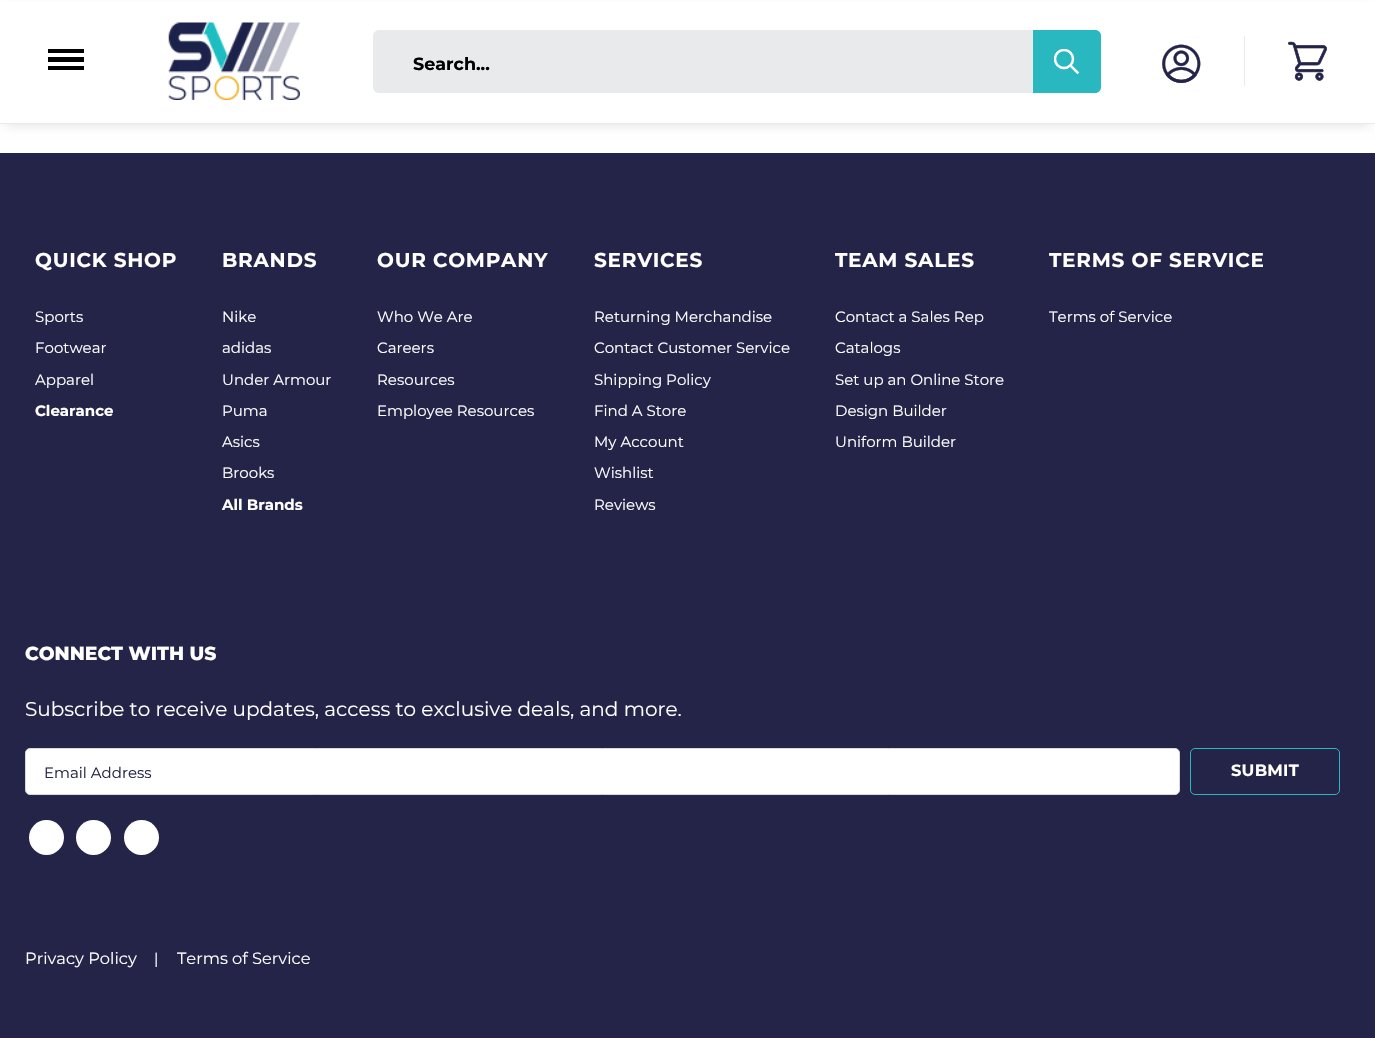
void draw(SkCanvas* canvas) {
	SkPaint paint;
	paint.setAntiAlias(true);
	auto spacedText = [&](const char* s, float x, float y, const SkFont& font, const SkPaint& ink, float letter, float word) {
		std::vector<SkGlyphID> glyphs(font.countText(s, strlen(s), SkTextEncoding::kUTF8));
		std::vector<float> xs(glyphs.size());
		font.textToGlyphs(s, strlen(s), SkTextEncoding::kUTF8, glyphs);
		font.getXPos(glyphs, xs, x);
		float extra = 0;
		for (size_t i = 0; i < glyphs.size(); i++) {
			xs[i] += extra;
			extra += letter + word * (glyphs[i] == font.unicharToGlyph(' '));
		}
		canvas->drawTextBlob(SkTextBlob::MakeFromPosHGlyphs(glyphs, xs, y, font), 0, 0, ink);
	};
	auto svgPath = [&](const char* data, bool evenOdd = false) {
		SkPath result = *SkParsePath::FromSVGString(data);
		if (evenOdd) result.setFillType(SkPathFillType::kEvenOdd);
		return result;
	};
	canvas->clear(0xffffffff);
	paint.setColor(0xffd4d4d4);
	paint.setMaskFilter(SkMaskFilter::MakeBlur(kNormal_SkBlurStyle, 6));
	canvas->drawRect(SkRect::MakeXYWH(6, 11, 1363, 112), paint);
	paint.setMaskFilter(nullptr);
	paint.setColor(0xffffffff);
	canvas->drawRect(SkRect::MakeXYWH(0, 2, 1375, 121), paint);
	paint.setColor(0xff000000);
	canvas->drawRect(SkRect::MakeXYWH(48, 49, 36, 4), paint);
	canvas->drawRect(SkRect::MakeXYWH(48, 57, 36, 5), paint);
	canvas->drawRect(SkRect::MakeXYWH(48, 66, 36, 4), paint);
	canvas->drawImageRect(SkImages::DeferredFromEncodedData(SkData::MakeFromFileName("img1.png")), SkRect::MakeXYWH(168, 22, 132, 78), SkSamplingOptions());
	paint.setColor(0xffe8eaeb);
	canvas->drawRoundRect(SkRect::MakeXYWH(373, 30, 728, 63), 6, 6, paint);
	SkFont f1(fontMgr->matchFamilyStyle("Montserrat", SkFontStyle::Bold()), 17.5);
	f1.setSubpixel(true);
	paint.setColor(0xff000000);
	canvas->drawString("Search...", 413, 70, f1, paint);
	paint.setColor(0xff29b7c0);
	canvas->drawPath(svgPath("M1033 30H1095C1098.5 30 1101 32.5 1101 36V87C1101 90.5 1098.5 93 1095 93H1033Z"), paint);
	paint.setStroke(true);
	paint.setStrokeWidth(2.5);
	paint.setStrokeCap(SkPaint::kSquare_Cap);
	paint.setColor(0xffffffff);
	canvas->drawPath(svgPath("M1077.5 72.5L1070.5 65.5"), paint);
	canvas->save();
	canvas->clipRect(SkRect::MakeXYWH(1054, 49, 26, 26));
	paint.setStrokeCap(SkPaint::kButt_Cap);
	canvas->drawCircle(1064, 59, 9, paint);
	canvas->restore();
	canvas->drawImageRect(SkImages::DeferredFromEncodedData(SkData::MakeFromFileName("img2.png")), SkRect::MakeXYWH(1162, 44, 39, 39), SkSamplingOptions());
	paint.setStroke(false);
	paint.setColor(0xffe8eaeb);
	canvas->drawRect(SkRect::MakeXYWH(1244, 36, 1, 50), paint);
	canvas->drawImageRect(SkImages::DeferredFromEncodedData(SkData::MakeFromFileName("img3.png")), SkRect::MakeXYWH(1288, 41, 39, 40), SkSamplingOptions());
	canvas->drawRect(SkRect::MakeXYWH(0, 123, 1375, 1), paint);
	paint.setColor(0xff242448);
	canvas->drawRect(SkRect::MakeXYWH(0, 153, 1375, 885), paint);
	SkFont f2(fontMgr->matchFamilyStyle("Montserrat", SkFontStyle::Bold()), 20);
	f2.setSubpixel(true);
	paint.setColor(0xffffffff);
	spacedText("QUICK SHOP", 35, 267, f2, paint, 0.75, 0);
	SkFont f3(fontMgr->matchFamilyStyle("Montserrat", SkFontStyle::Normal()), 15);
	f3.setSubpixel(true);
	canvas->drawString("Sports", 35, 322, f3, paint);
	canvas->drawString("Footwear", 35, 353, f3, paint);
	canvas->drawString("Apparel", 35, 385, f3, paint);
	SkFont f4(fontMgr->matchFamilyStyle("Montserrat", SkFontStyle::Bold()), 15);
	f4.setSubpixel(true);
	canvas->drawString("Clearance", 35, 416, f4, paint);
	spacedText("BRANDS", 222, 267, f2, paint, 0.75, 0);
	canvas->drawString("Nike", 222, 322, f3, paint);
	canvas->drawString("adidas", 222, 353, f3, paint);
	canvas->drawString("Under Armour", 222, 385, f3, paint);
	canvas->drawString("Puma", 222, 416, f3, paint);
	canvas->drawString("Asics", 222, 447, f3, paint);
	canvas->drawString("Brooks", 222, 478, f3, paint);
	canvas->drawString("All Brands", 222, 510, f4, paint);
	spacedText("OUR COMPANY", 377, 267, f2, paint, 0.75, 0);
	canvas->drawString("Who We Are", 377, 322, f3, paint);
	canvas->drawString("Careers", 377, 353, f3, paint);
	canvas->drawString("Resources", 377, 385, f3, paint);
	canvas->drawString("Employee Resources", 377, 416, f3, paint);
	spacedText("SERVICES", 594, 267, f2, paint, 0.75, 0);
	canvas->drawString("Returning Merchandise", 594, 322, f3, paint);
	canvas->drawString("Contact Customer Service", 594, 353, f3, paint);
	canvas->drawString("Shipping Policy", 594, 385, f3, paint);
	canvas->drawString("Find A Store", 594, 416, f3, paint);
	canvas->drawString("My Account", 594, 447, f3, paint);
	canvas->drawString("Wishlist", 594, 478, f3, paint);
	canvas->drawString("Reviews", 594, 510, f3, paint);
	spacedText("TEAM SALES", 835, 267, f2, paint, 0.75, 0);
	canvas->drawString("Contact a Sales Rep", 835, 322, f3, paint);
	canvas->drawString("Catalogs", 835, 353, f3, paint);
	canvas->drawString("Set up an Online Store", 835, 385, f3, paint);
	canvas->drawString("Design Builder", 835, 416, f3, paint);
	canvas->drawString("Uniform Builder", 835, 447, f3, paint);
	spacedText("TERMS OF SERVICE", 1049, 267, f2, paint, 0.75, 0);
	canvas->drawString("Terms of Service", 1049, 322, f3, paint);
	SkFont f5(fontMgr->matchFamilyStyle("Montserrat", SkFontStyle(800, SkFontStyle::kNormal_Width, SkFontStyle::kUpright_Slant)), 18.75);
	f5.setSubpixel(true);
	canvas->drawString("CONNECT WITH US", 25, 660, f5, paint);
	SkFont f6(fontMgr->matchFamilyStyle("Montserrat", SkFontStyle::Normal()), 20);
	f6.setSubpixel(true);
	canvas->drawString("Subscribe to receive updates, access to exclusive deals, and more.", 25, 716, f6, paint);
	canvas->drawRoundRect(SkRect::MakeXYWH(25.5, 748.5, 1154, 46), 4.5, 4.5, paint);
	paint.setStroke(true);
	paint.setStrokeWidth(1);
	paint.setColor(0xffd9d9d9);
	canvas->drawRoundRect(SkRect::MakeXYWH(25.5, 748.5, 1154, 46), 4.5, 4.5, paint);
	paint.setStroke(false);
	paint.setColor(0xff242448);
	canvas->drawString("Email Address", 44, 778, f3, paint);
	paint.setStroke(true);
	paint.setColor(0xff29b7c0);
	canvas->drawRoundRect(SkRect::MakeXYWH(1190.5, 748.5, 149, 46), 4.5, 4.5, paint);
	SkFont f7(fontMgr->matchFamilyStyle("Montserrat", SkFontStyle::Bold()), 16.25);
	f7.setSubpixel(true);
	paint.setStroke(false);
	paint.setColor(0xffffffff);
	spacedText("SUBMIT", 1231, 776, f7, paint, 0.25, 0);
	canvas->drawCircle(46.5, 837.5, 17.5, paint);
	canvas->drawCircle(93.5, 837.5, 17.5, paint);
	canvas->drawCircle(141.5, 837.5, 17.5, paint);
	SkFont f8(fontMgr->matchFamilyStyle("Montserrat", SkFontStyle::Normal()), 16.25);
	f8.setSubpixel(true);
	canvas->drawString("Privacy Policy", 25, 964, f8, paint);
	canvas->drawString("|", 154, 964, f3, paint);
	canvas->drawString("Terms of Service", 177, 964, f8, paint);
}
